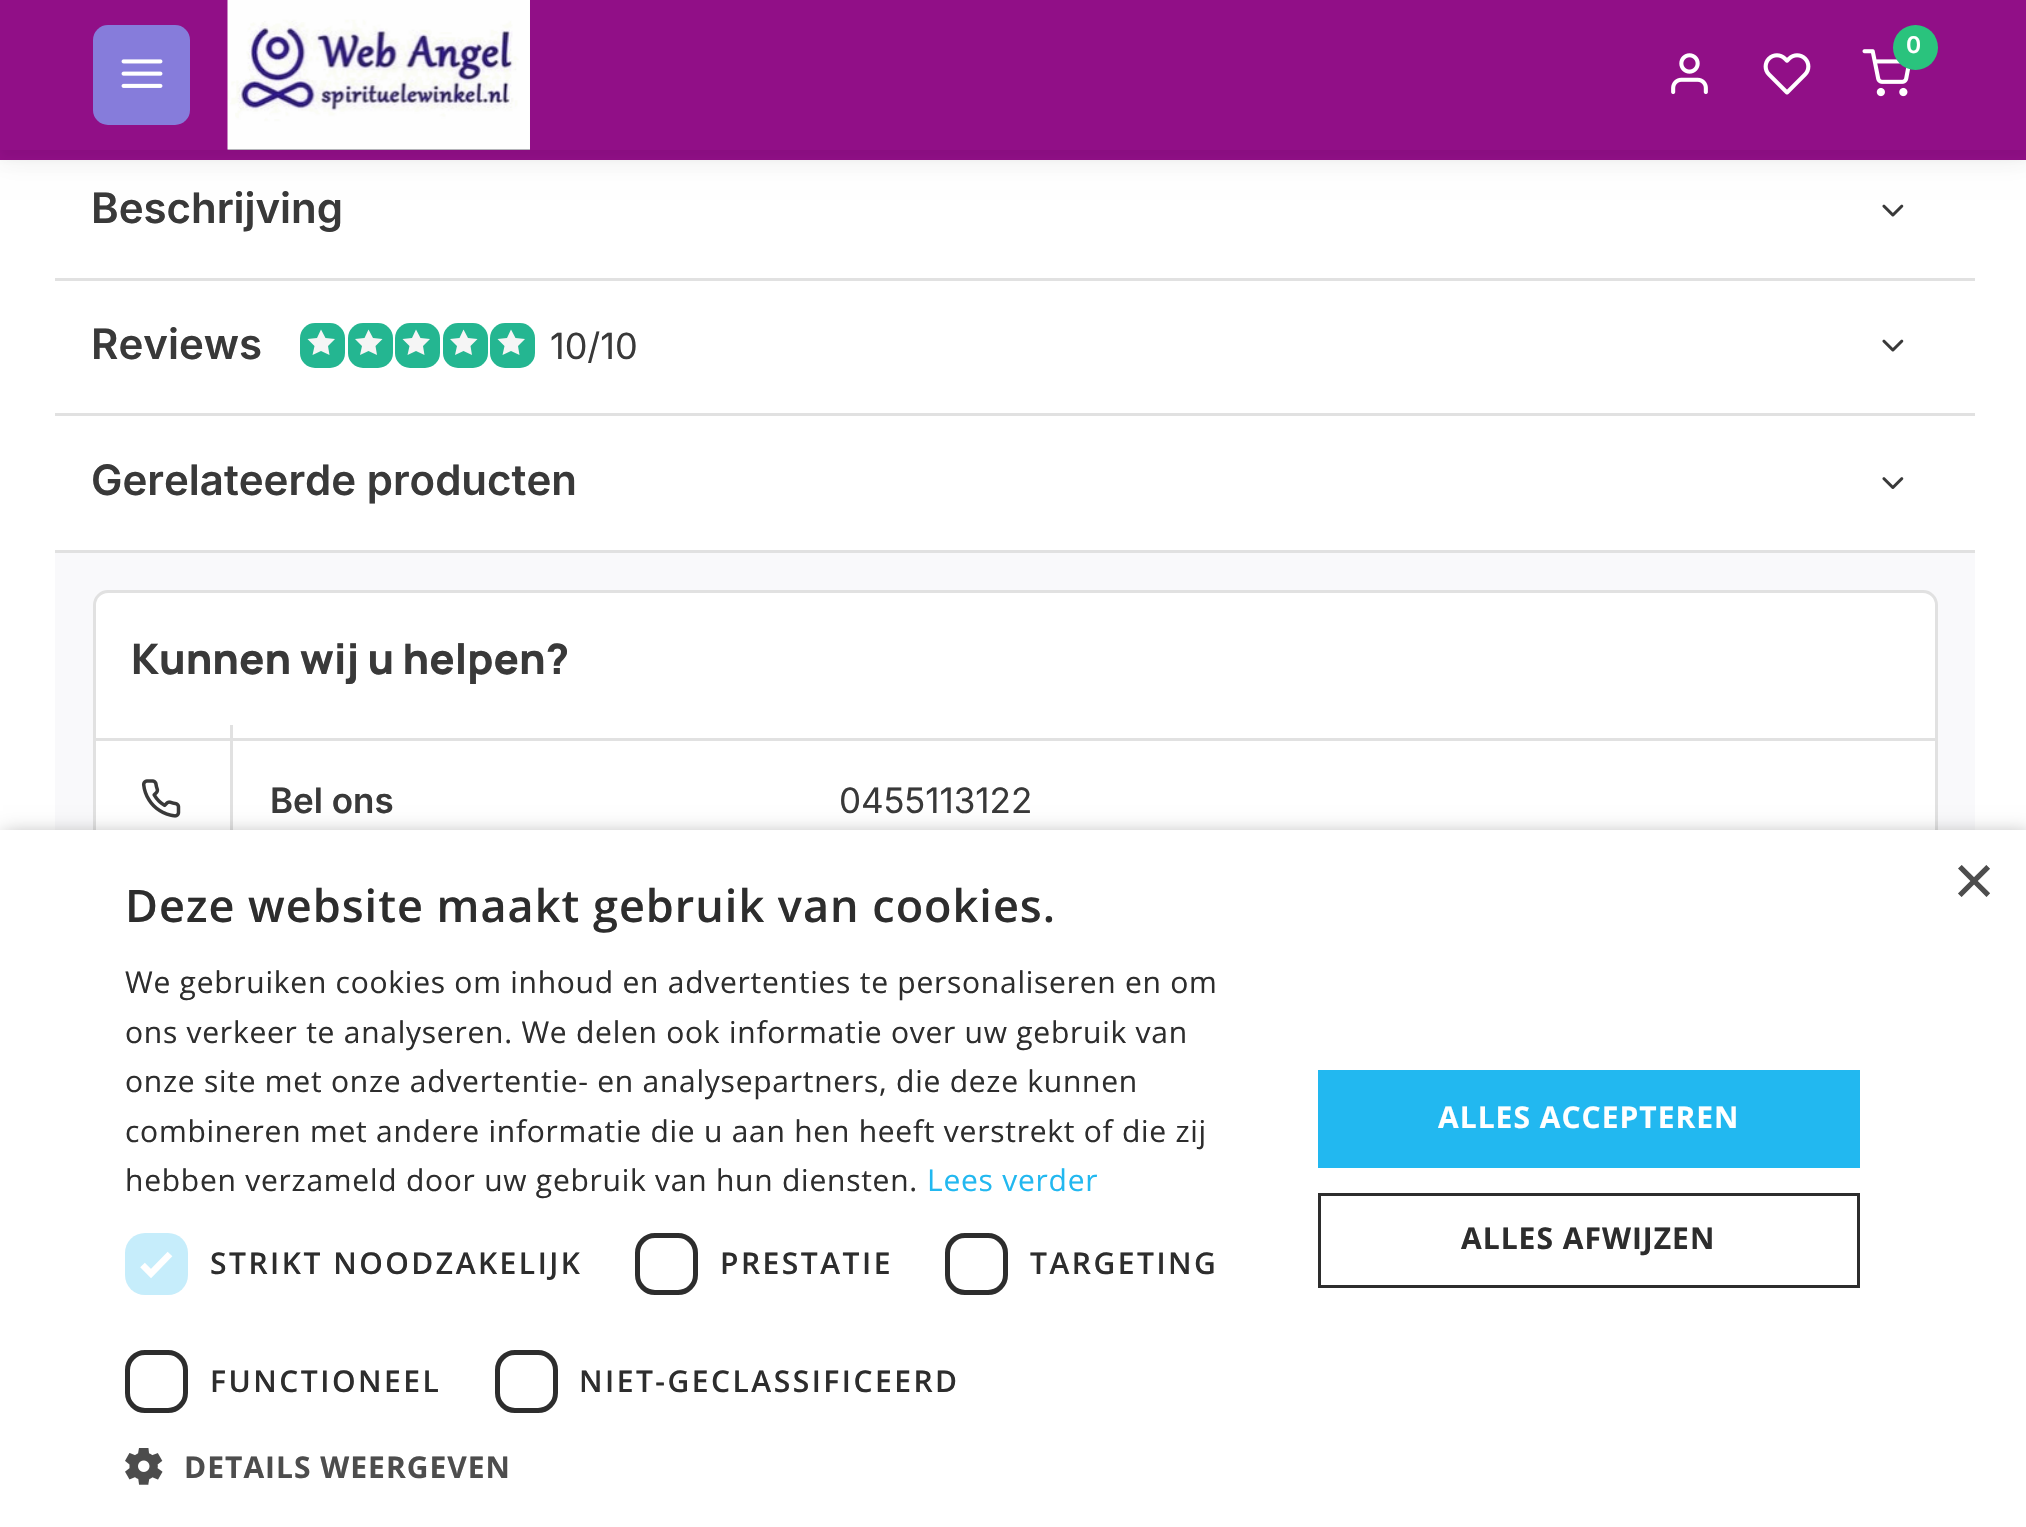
void draw(SkCanvas* canvas) {
	SkPaint paint;
	paint.setAntiAlias(true);
	auto spacedText = [&](const char* s, float x, float y, const SkFont& font, const SkPaint& ink, float letter, float word) {
		std::vector<SkGlyphID> glyphs(font.countText(s, strlen(s), SkTextEncoding::kUTF8));
		std::vector<float> xs(glyphs.size());
		font.textToGlyphs(s, strlen(s), SkTextEncoding::kUTF8, glyphs);
		font.getXPos(glyphs, xs, x);
		float extra = 0;
		for (size_t i = 0; i < glyphs.size(); i++) {
			xs[i] += extra;
			extra += letter + word * (glyphs[i] == font.unicharToGlyph(' '));
		}
		canvas->drawTextBlob(SkTextBlob::MakeFromPosHGlyphs(glyphs, xs, y, font), 0, 0, ink);
	};
	auto svgPath = [&](const char* data, bool evenOdd = false) {
		SkPath result = *SkParsePath::FromSVGString(data);
		if (evenOdd) result.setFillType(SkPathFillType::kEvenOdd);
		return result;
	};
	canvas->clear(0xffffffff);
	paint.setColor(0x0d000000);
	paint.setMaskFilter(SkMaskFilter::MakeBlur(kNormal_SkBlurStyle, 12.5));
	canvas->drawRect(SkRect::MakeXYWH(0, 13, 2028, 150), paint);
	paint.setMaskFilter(nullptr);
	paint.setColor(0xff910f87);
	canvas->drawRect(SkRect::MakeXYWH(0, 150, 2026, 10), paint);
	paint.setColor(0x0d000000);
	paint.setMaskFilter(SkMaskFilter::MakeBlur(kNormal_SkBlurStyle, 5));
	canvas->drawRect(SkRect::MakeXYWH(0, 8, 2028, 150), paint);
	paint.setMaskFilter(nullptr);
	paint.setColor(0xff910f87);
	canvas->drawRect(SkRect::MakeXYWH(0, 0, 2026, 150), paint);
	paint.setColor(0xff867cdb);
	canvas->drawRoundRect(SkRect::MakeXYWH(93, 25, 97, 100), 15, 15, paint);
	canvas->drawImageRect(SkImages::DeferredFromEncodedData(SkData::MakeFromFileName("img1.png")), SkRect::MakeXYWH(121, 59, 42, 29), SkSamplingOptions());
	paint.setColor(0xff6a6973);
	canvas->drawRect(SkRect::MakeXYWH(228, 0, 302, 150), paint);
	canvas->drawImageRect(SkImages::DeferredFromEncodedData(SkData::MakeFromFileName("img2.png")), SkRect::MakeXYWH(227, 0, 303, 150), SkSamplingOptions());
	canvas->drawImageRect(SkImages::DeferredFromEncodedData(SkData::MakeFromFileName("img3.png")), SkRect::MakeXYWH(1862, 49, 48, 48), SkSamplingOptions());
	paint.setColor(0xff2ac37d);
	canvas->drawCircle(1915.5, 47.5, 22.5, paint);
	SkFont f1(fontMgr->matchFamilyStyle("Inter", SkFontStyle(600, SkFontStyle::kNormal_Width, SkFontStyle::kUpright_Slant)), 23);
	f1.setSubpixel(true);
	paint.setColor(0xffffffff);
	canvas->drawString("0", 1906, 53, f1, paint);
	canvas->drawImageRect(SkImages::DeferredFromEncodedData(SkData::MakeFromFileName("img4.png")), SkRect::MakeXYWH(1671, 53, 37, 42), SkSamplingOptions());
	canvas->drawImageRect(SkImages::DeferredFromEncodedData(SkData::MakeFromFileName("img5.png")), SkRect::MakeXYWH(1763, 53, 48, 42), SkSamplingOptions());
	paint.setColor(0xffe1e1e1);
	canvas->drawRect(SkRect::MakeXYWH(55, 278, 1920, 3), paint);
	SkFont f2(fontMgr->matchFamilyStyle("Inter", SkFontStyle(600, SkFontStyle::kNormal_Width, SkFontStyle::kUpright_Slant)), 42);
	f2.setSubpixel(true);
	paint.setColor(0xff393939);
	canvas->drawString("Beschrijving", 91, 223, f2, paint);
	canvas->drawImageRect(SkImages::DeferredFromEncodedData(SkData::MakeFromFileName("img6.png")), SkRect::MakeXYWH(1882, 204, 22, 13), SkSamplingOptions());
	paint.setColor(0xffe1e1e1);
	canvas->drawRect(SkRect::MakeXYWH(55, 413, 1920, 3), paint);
	paint.setColor(0xff393939);
	canvas->drawString("Reviews", 91, 359, f2, paint);
	paint.setColor(0xff24b691);
	canvas->drawRoundRect(SkRect::MakeXYWH(300, 323, 45, 45), 15, 15, paint);
	paint.setColor(0xfff5f5f5);
	canvas->drawPath(svgPath("M335 339L325.5 338L321 329.5L317 338L307.5 339L314.5 346L312.5 355L321 351L329.5 355L328 346Z"), paint);
	paint.setColor(0xff24b691);
	canvas->drawRoundRect(SkRect::MakeXYWH(348, 323, 45, 45), 15, 15, paint);
	paint.setColor(0xfff5f5f5);
	canvas->drawPath(svgPath("M382.5 339L373 338L368.5 329.5L364.5 338L355 339L362 346L360 355L368.5 351L377 355L375.5 346Z"), paint);
	paint.setColor(0xff24b691);
	canvas->drawRoundRect(SkRect::MakeXYWH(395, 323, 45, 45), 15, 15, paint);
	paint.setColor(0xfff5f5f5);
	canvas->drawPath(svgPath("M430 339L420.5 338L416 329.5L412 338L402.5 339L409.5 346L407.5 355L416 351L424.5 355L423 346Z"), paint);
	paint.setColor(0xff24b691);
	canvas->drawRoundRect(SkRect::MakeXYWH(443, 323, 45, 45), 15, 15, paint);
	paint.setColor(0xfff5f5f5);
	canvas->drawPath(svgPath("M477.5 339L468 338L463.5 329.5L459.5 338L450 339L457 346L455 355L463.5 351L472 355L470.5 346Z"), paint);
	paint.setColor(0xff24b691);
	canvas->drawRoundRect(SkRect::MakeXYWH(490, 323, 45, 45), 15, 15, paint);
	paint.setColor(0xfff5f5f5);
	canvas->drawPath(svgPath("M525 339L515.5 338L511 329.5L507 338L497.5 339L504.5 346L502.5 355L511 351L519.5 355L518 346Z"), paint);
	SkFont f3(fontMgr->matchFamilyStyle("Inter", SkFontStyle::Normal()), 36);
	f3.setSubpixel(true);
	paint.setColor(0xff393939);
	canvas->drawString("10/10", 550, 359, f3, paint);
	canvas->drawImageRect(SkImages::DeferredFromEncodedData(SkData::MakeFromFileName("img6.png")), SkRect::MakeXYWH(1882, 339, 22, 13), SkSamplingOptions());
	paint.setColor(0xffe1e1e1);
	canvas->drawRect(SkRect::MakeXYWH(55, 550, 1920, 3), paint);
	paint.setColor(0xff393939);
	canvas->drawString("Gerelateerde producten", 91, 495, f2, paint);
	canvas->drawImageRect(SkImages::DeferredFromEncodedData(SkData::MakeFromFileName("img7.png")), SkRect::MakeXYWH(1882, 477, 22, 12), SkSamplingOptions());
	paint.setColor(0xfff9f9fb);
	canvas->drawRect(SkRect::MakeXYWH(55, 553, 1920, 277), paint);
	paint.setColor(0xffffffff);
	canvas->drawRoundRect(SkRect::MakeXYWH(94.5, 591.5, 1842, 635), 13.5, 13.5, paint);
	paint.setStroke(true);
	paint.setStrokeWidth(3);
	paint.setColor(0xffe1e1e1);
	canvas->drawRoundRect(SkRect::MakeXYWH(94.5, 591.5, 1842, 635), 13.5, 13.5, paint);
	SkFont f4(fontMgr->matchFamilyStyle("Manrope", SkFontStyle(200, SkFontStyle::kNormal_Width, SkFontStyle::kUpright_Slant)), 42);
	f4.setSubpixel(true);
	paint.setStroke(false);
	paint.setColor(0xff393939);
	canvas->drawString("Kunnen wij u helpen?", 131, 674, f4, paint);
	paint.setColor(0xffe1e1e1);
	canvas->drawRect(SkRect::MakeXYWH(95, 738, 1840, 3), paint);
	canvas->drawRect(SkRect::MakeXYWH(230, 725, 3, 105), paint);
	canvas->drawImageRect(SkImages::DeferredFromEncodedData(SkData::MakeFromFileName("img8.png")), SkRect::MakeXYWH(141, 779, 40, 39), SkSamplingOptions());
	SkFont f5(fontMgr->matchFamilyStyle("Inter", SkFontStyle(600, SkFontStyle::kNormal_Width, SkFontStyle::kUpright_Slant)), 35);
	f5.setSubpixel(true);
	paint.setColor(0xff393939);
	canvas->drawString("Bel ons", 270, 813, f5, paint);
	SkFont f6(fontMgr->matchFamilyStyle("Inter", SkFontStyle::Normal()), 35);
	f6.setSubpixel(true);
	canvas->drawString("0455113122", 839, 813, f6, paint);
	paint.setColor(0x59000000);
	paint.setMaskFilter(SkMaskFilter::MakeBlur(kNormal_SkBlurStyle, 10));
	canvas->drawRect(SkRect::MakeXYWH(3, 835, 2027, 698), paint);
	paint.setMaskFilter(nullptr);
	paint.setColor(0xffffffff);
	canvas->drawRect(SkRect::MakeXYWH(0, 830, 2026, 697), paint);
	SkFont f7(fontMgr->matchFamilyStyle("Liberation Sans", SkFontStyle::Normal()), 72);
	f7.setSubpixel(true);
	paint.setColor(0xff4d4d4d);
	canvas->drawString("×", 1953, 905, f7, paint);
	SkFont f8(fontMgr->matchFamilyStyle("Open Sans", SkFontStyle(600, SkFontStyle::kNormal_Width, SkFontStyle::kUpright_Slant)), 45);
	f8.setSubpixel(true);
	paint.setColor(0xff2d2d2d);
	spacedText("Deze website maakt gebruik van cookies.", 125, 922, f8, paint, 1, 0);
	SkFont f9(fontMgr->matchFamilyStyle("Open Sans", SkFontStyle::Normal()), 30);
	f9.setSubpixel(true);
	spacedText("We gebruiken cookies om inhoud en advertenties te personaliseren en om", 125, 993, f9, paint, 0.75, 0);
	spacedText("ons verkeer te analyseren. We delen ook informatie over uw gebruik van", 125, 1043, f9, paint, 0.75, 0);
	spacedText("onze site met onze advertentie- en analysepartners, die deze kunnen", 125, 1092, f9, paint, 0.75, 0);
	spacedText("combineren met andere informatie die u aan hen heeft verstrekt of die zij", 125, 1142, f9, paint, 0.75, 0);
	spacedText("hebben verzameld door uw gebruik van hun diensten.", 125, 1191, f9, paint, 0.75, 0);
	paint.setColor(0xff22b8f0);
	spacedText("Lees verder", 927, 1191, f9, paint, 0.75, 0);
	paint.setColor(0xffc6edfb);
	canvas->drawRoundRect(SkRect::MakeXYWH(125, 1233, 63, 62), 20, 20, paint);
	paint.setStroke(true);
	paint.setStrokeWidth(6.6);
	paint.setColor(0xffffffff);
	canvas->drawPath(svgPath("M142.5 1265L151 1273.5L170 1254"), paint);
	SkFont f10(fontMgr->matchFamilyStyle("Open Sans", SkFontStyle(600, SkFontStyle::kNormal_Width, SkFontStyle::kUpright_Slant)), 30);
	f10.setSubpixel(true);
	paint.setStroke(false);
	paint.setColor(0xff2d2d2d);
	spacedText("STRIKT NOODZAKELIJK", 210, 1274, f10, paint, 2.5, 0);
	paint.setStroke(true);
	paint.setStrokeWidth(5);
	canvas->drawRoundRect(SkRect::MakeXYWH(637.5, 1235.5, 58, 57), 17.5, 17.5, paint);
	paint.setStroke(false);
	spacedText("PRESTATIE", 720, 1274, f10, paint, 2.5, 0);
	paint.setStroke(true);
	canvas->drawRoundRect(SkRect::MakeXYWH(947.5, 1235.5, 58, 57), 17.5, 17.5, paint);
	paint.setStroke(false);
	spacedText("TARGETING", 1030, 1274, f10, paint, 2.5, 0);
	paint.setStroke(true);
	canvas->drawRoundRect(SkRect::MakeXYWH(127.5, 1352.5, 58, 58), 17.5, 17.5, paint);
	paint.setStroke(false);
	spacedText("FUNCTIONEEL", 210, 1392, f10, paint, 2.5, 0);
	paint.setStroke(true);
	canvas->drawRoundRect(SkRect::MakeXYWH(497.5, 1352.5, 58, 58), 17.5, 17.5, paint);
	paint.setStroke(false);
	spacedText("NIET-GECLASSIFICEERD", 579, 1392, f10, paint, 2.5, 0);
	canvas->drawImageRect(SkImages::DeferredFromEncodedData(SkData::MakeFromFileName("img9.png")), SkRect::MakeXYWH(125, 1448, 38, 37), SkSamplingOptions());
	SkFont f11(fontMgr->matchFamilyStyle("Open Sans", SkFontStyle::Bold()), 30);
	f11.setSubpixel(true);
	paint.setColor(0xff4d4d4d);
	spacedText("DETAILS WEERGEVEN", 184, 1478, f11, paint, 1, 0);
	paint.setColor(0xff22b8f0);
	canvas->drawRect(SkRect::MakeXYWH(1318, 1070, 542, 98), paint);
	paint.setColor(0xffffffff);
	spacedText("ALLES ACCEPTEREN", 1438, 1128, f11, paint, 1, 0);
	paint.setStroke(true);
	paint.setStrokeWidth(3);
	paint.setColor(0xff2d2d2d);
	canvas->drawRect(SkRect::MakeXYWH(1319.5, 1194.5, 539, 92), paint);
	paint.setStroke(false);
	spacedText("ALLES AFWIJZEN", 1461, 1249, f11, paint, 1, 0);
}
